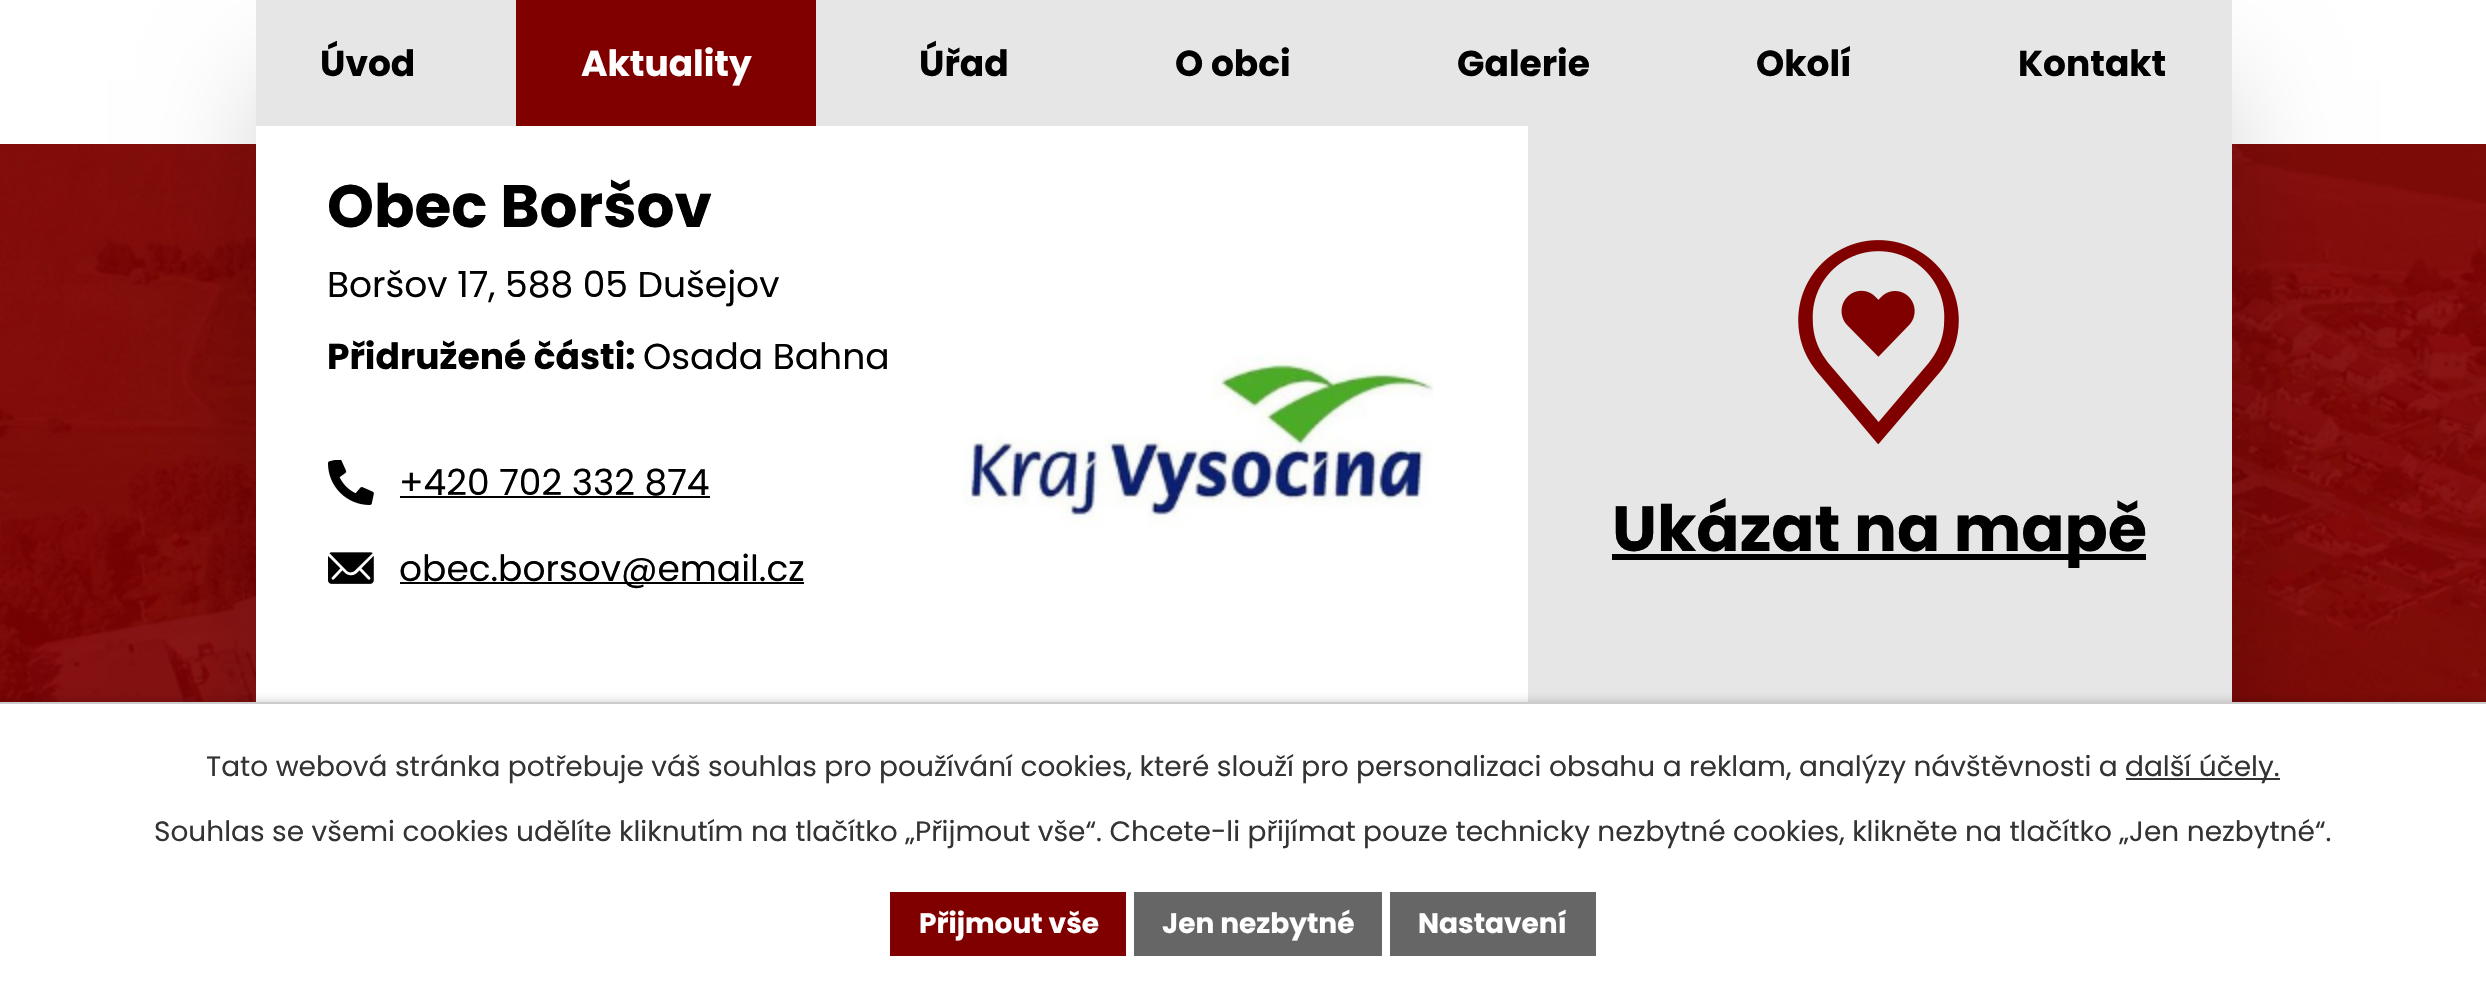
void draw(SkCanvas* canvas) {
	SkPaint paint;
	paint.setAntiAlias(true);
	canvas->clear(0xffffffff);
	canvas->drawImageRect(SkImages::DeferredFromEncodedData(SkData::MakeFromFileName("img1.png")), SkRect::MakeXYWH(0, 144, 2486, 558), SkSamplingOptions());
	paint.setColor(0x29000000);
	paint.setMaskFilter(SkMaskFilter::MakeBlur(kNormal_SkBlurStyle, 50));
	canvas->drawRect(SkRect::MakeXYWH(256, 80, 1976, 690), paint);
	paint.setMaskFilter(nullptr);
	paint.setColor(0xffe6e6e6);
	canvas->drawRect(SkRect::MakeXYWH(256, 0, 1976, 126), paint);
	SkFont f1(fontMgr->matchFamilyStyle("Poppins", SkFontStyle::Bold()), 36);
	f1.setSubpixel(true);
	paint.setColor(0xff000000);
	canvas->drawString("Úvod", 320, 76, f1, paint);
	paint.setColor(0xff800000);
	canvas->drawRect(SkRect::MakeXYWH(516, 0, 300, 126), paint);
	paint.setColor(0xffffffff);
	canvas->drawString("Aktuality", 581, 76, f1, paint);
	paint.setColor(0xff000000);
	canvas->drawString("Úřad", 919, 76, f1, paint);
	canvas->drawString("O obci", 1175, 76, f1, paint);
	canvas->drawString("Galerie", 1457, 76, f1, paint);
	canvas->drawString("Okolí", 1756, 76, f1, paint);
	canvas->drawString("Kontakt", 2018, 76, f1, paint);
	paint.setColor(0xffffffff);
	canvas->drawRect(SkRect::MakeXYWH(256, 126, 1272, 576), paint);
	SkFont f2(fontMgr->matchFamilyStyle("Poppins", SkFontStyle::Bold()), 59.75);
	f2.setSubpixel(true);
	paint.setColor(0xff000000);
	canvas->drawString("Obec Boršov", 327, 227, f2, paint);
	SkFont f3(fontMgr->matchFamilyStyle("Poppins", SkFontStyle::Normal()), 36);
	f3.setSubpixel(true);
	canvas->drawString("Boršov 17, 588 05 Dušejov", 327, 297, f3, paint);
	canvas->drawString("Přidružené části:", 327, 369, f1, paint);
	canvas->drawString("Osada Bahna", 643, 369, f3, paint);
	canvas->drawImageRect(SkImages::DeferredFromEncodedData(SkData::MakeFromFileName("img2.png")), SkRect::MakeXYWH(962, 353, 472, 174), SkSamplingOptions());
	canvas->drawImageRect(SkImages::DeferredFromEncodedData(SkData::MakeFromFileName("img3.png")), SkRect::MakeXYWH(328, 460, 46, 45), SkSamplingOptions());
	canvas->drawString("+420 702 332 874", 399, 495, f3, paint);
	canvas->drawRect(SkRect::MakeXYWH(400, 496, 310, 2), paint);
	canvas->drawImageRect(SkImages::DeferredFromEncodedData(SkData::MakeFromFileName("img4.png")), SkRect::MakeXYWH(328, 552, 46, 32), SkSamplingOptions());
	canvas->drawRect(SkRect::MakeXYWH(400, 582, 404, 2), paint);
	canvas->drawString("obec.borsov@email.cz", 399, 581, f3, paint);
	paint.setColor(0xffe6e6e6);
	canvas->drawRect(SkRect::MakeXYWH(1528, 126, 704, 576), paint);
	canvas->drawImageRect(SkImages::DeferredFromEncodedData(SkData::MakeFromFileName("img5.png")), SkRect::MakeXYWH(1798, 240, 161, 204), SkSamplingOptions());
	paint.setColor(0xff000000);
	canvas->drawRect(SkRect::MakeXYWH(1612, 554, 534, 6), paint);
	SkFont f4(fontMgr->matchFamilyStyle("Poppins", SkFontStyle::Bold()), 63.75);
	f4.setSubpixel(true);
	canvas->drawString("Ukázat na mapě", 1612, 551, f4, paint);
	paint.setColor(0x33000000);
	paint.setMaskFilter(SkMaskFilter::MakeBlur(kNormal_SkBlurStyle, 5));
	canvas->drawRect(SkRect::MakeXYWH(0, 702, 2486, 292), paint);
	paint.setMaskFilter(nullptr);
	paint.setColor(0xffffffff);
	canvas->drawRect(SkRect::MakeXYWH(0, 704, 2486, 290), paint);
	paint.setColor(0xffcccccc);
	canvas->drawRect(SkRect::MakeXYWH(0, 702, 2486, 2), paint);
	SkFont f5(fontMgr->matchFamilyStyle("Poppins", SkFontStyle::Normal()), 28);
	f5.setSubpixel(true);
	paint.setColor(0xff333333);
	canvas->drawString("Tato webová stránka potřebuje váš souhlas pro používání cookies, které slouží pro personalizaci obsahu a reklam, analýzy návštěvnosti a", 206, 776, f5, paint);
	canvas->drawRect(SkRect::MakeXYWH(2126, 778, 154, 2), paint);
	canvas->drawString("další účely.", 2125, 776, f5, paint);
	canvas->drawString("Souhlas se všemi cookies udělíte kliknutím na tlačítko „Přijmout vše“. Chcete-li přijímat pouze technicky nezbytné cookies, klikněte na tlačítko „Jen nezbytné“.", 154, 841, f5, paint);
	paint.setColor(0xff800000);
	canvas->drawRect(SkRect::MakeXYWH(890, 892, 236, 64), paint);
	SkFont f6(fontMgr->matchFamilyStyle("Poppins", SkFontStyle::Bold()), 28);
	f6.setSubpixel(true);
	paint.setColor(0xffffffff);
	canvas->drawString("Přijmout vše", 919, 933, f6, paint);
	paint.setColor(0xff666666);
	canvas->drawRect(SkRect::MakeXYWH(1134, 892, 248, 64), paint);
	paint.setColor(0xffffffff);
	canvas->drawString("Jen nezbytné", 1162, 933, f6, paint);
	paint.setColor(0xff666666);
	canvas->drawRect(SkRect::MakeXYWH(1390, 892, 206, 64), paint);
	paint.setColor(0xffffffff);
	canvas->drawString("Nastavení", 1418, 933, f6, paint);
}
